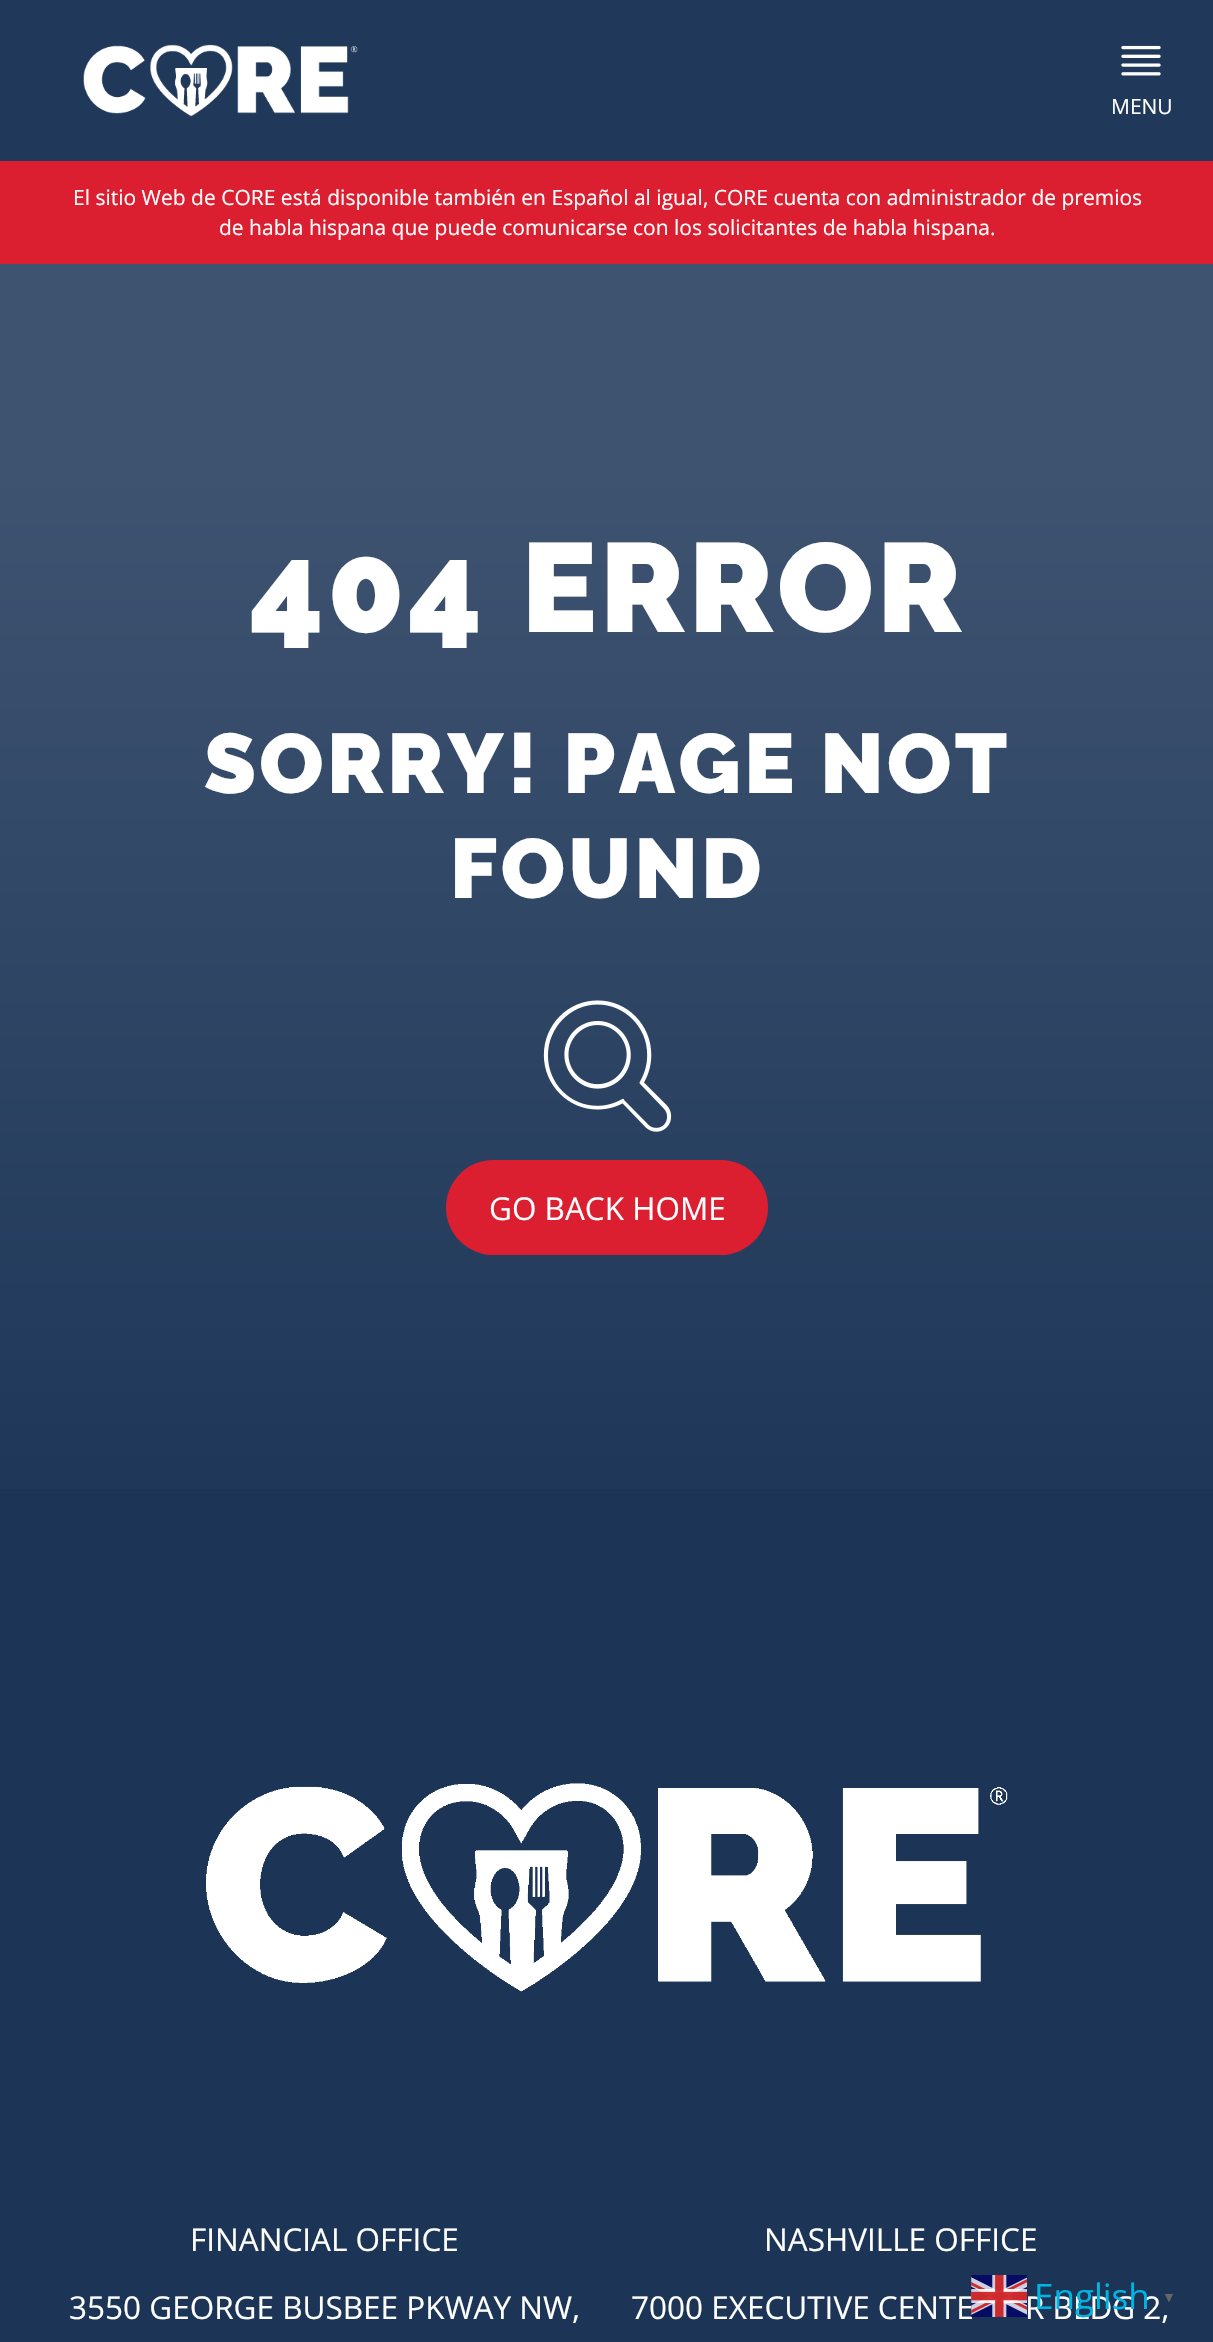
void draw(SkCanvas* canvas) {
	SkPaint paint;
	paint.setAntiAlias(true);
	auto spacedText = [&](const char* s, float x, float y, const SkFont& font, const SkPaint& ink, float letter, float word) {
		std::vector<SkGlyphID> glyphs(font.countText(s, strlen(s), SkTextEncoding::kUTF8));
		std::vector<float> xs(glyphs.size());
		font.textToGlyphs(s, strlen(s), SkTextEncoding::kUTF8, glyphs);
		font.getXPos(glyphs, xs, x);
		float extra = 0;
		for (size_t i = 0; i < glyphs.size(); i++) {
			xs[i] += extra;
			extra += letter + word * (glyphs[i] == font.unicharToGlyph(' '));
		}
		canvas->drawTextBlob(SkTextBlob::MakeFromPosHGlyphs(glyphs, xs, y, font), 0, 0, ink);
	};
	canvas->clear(0xff1c3557);
	paint.setColor(0xff20395a);
	canvas->drawRect(SkRect::MakeXYWH(0, 0, 1213, 161), paint);
	canvas->drawImageRect(SkImages::DeferredFromEncodedData(SkData::MakeFromFileName("img1.png")), SkRect::MakeXYWH(83, 44, 275, 73), SkSamplingOptions());
	canvas->drawImageRect(SkImages::DeferredFromEncodedData(SkData::MakeFromFileName("img2.png")), SkRect::MakeXYWH(1121, 45, 40, 31), SkSamplingOptions());
	SkFont f1(fontMgr->matchFamilyStyle("Open Sans", SkFontStyle::Normal()), 21);
	f1.setSubpixel(true);
	paint.setColor(0xffffffff);
	canvas->drawString("MENU", 1111, 114, f1, paint);
	paint.setColor(0xffdb1f30);
	canvas->drawRect(SkRect::MakeXYWH(0, 161, 1213, 103), paint);
	paint.setColor(0xffffffff);
	canvas->drawString("El sitio Web de CORE está disponible también en Español al igual, CORE cuenta con administrador de premios", 73, 205, f1, paint);
	canvas->drawString("de habla hispana que puede comunicarse con los solicitantes de habla hispana.", 219, 235, f1, paint);
	{
		const SkColor colors[] = {0xff3e5370, 0xff1c3557};
		const float stops[] = {0.3, 1};
		const SkPoint ends[] = {{607, 0}, {607, 1570}};
		paint.setShader(SkGradientShader::MakeLinear(ends, colors, stops, 2, SkTileMode::kClamp));
		paint.setAlpha(255);
	}
	canvas->drawRect(SkRect::MakeXYWH(0, 264, 1213, 1225), paint);
	SkFont f2(fontMgr->matchFamilyStyle("Raleway", SkFontStyle(900, SkFontStyle::kNormal_Width, SkFontStyle::kUpright_Slant)), 126);
	f2.setSubpixel(true);
	paint.setShader(nullptr);
	paint.setColor(0xffffffff);
	spacedText("404 ERROR", 250, 632, f2, paint, 3.5, 4);
	SkFont f3(fontMgr->matchFamilyStyle("Raleway", SkFontStyle(900, SkFontStyle::kNormal_Width, SkFontStyle::kUpright_Slant)), 84);
	f3.setSubpixel(true);
	spacedText("SORRY! PAGE NOT", 204, 793, f3, paint, 3.5, 0);
	spacedText("FOUND", 450, 898, f3, paint, 3.5, 0);
	canvas->drawImageRect(SkImages::DeferredFromEncodedData(SkData::MakeFromFileName("img3.png")), SkRect::MakeXYWH(543, 1000, 129, 132), SkSamplingOptions());
	paint.setColor(0xffdb1f30);
	canvas->drawRoundRect(SkRect::MakeXYWH(446, 1160, 322, 95), 47.5, 47.5, paint);
	SkFont f4(fontMgr->matchFamilyStyle("Open Sans", SkFontStyle::Normal()), 31.5);
	f4.setSubpixel(true);
	paint.setColor(0xffffffff);
	canvas->drawString("GO BACK HOME", 489, 1220, f4, paint);
	canvas->drawImageRect(SkImages::DeferredFromEncodedData(SkData::MakeFromFileName("img4.png")), SkRect::MakeXYWH(206, 1783, 802, 209), SkSamplingOptions());
	canvas->drawString("FINANCIAL OFFICE", 190, 2251, f4, paint);
	canvas->drawString("3550 GEORGE BUSBEE PKWAY NW,", 69, 2319, f4, paint);
	canvas->drawString("NASHVILLE OFFICE", 764, 2251, f4, paint);
	canvas->drawString("7000 EXECUTIVE CENTE", 631, 2319, f4, paint);
	canvas->drawString("R BLDG 2,", 1025, 2319, f4, paint);
	canvas->drawImageRect(SkImages::DeferredFromEncodedData(SkData::MakeFromFileName("img5.png")), SkRect::MakeXYWH(971, 2275, 56, 42), SkSamplingOptions());
	SkFont f5(fontMgr->matchFamilyStyle("Open Sans", SkFontStyle::Normal()), 35);
	f5.setSubpixel(true);
	paint.setColor(0xff00b5e2);
	canvas->drawString("English", 1034, 2309, f5, paint);
	SkFont f6(fontMgr->matchFamilyStyle("Liberation Sans", SkFontStyle::Bold()), 14);
	f6.setSubpixel(true);
	paint.setColor(0xff666666);
	canvas->drawString("▼", 1162, 2302, f6, paint);
}
